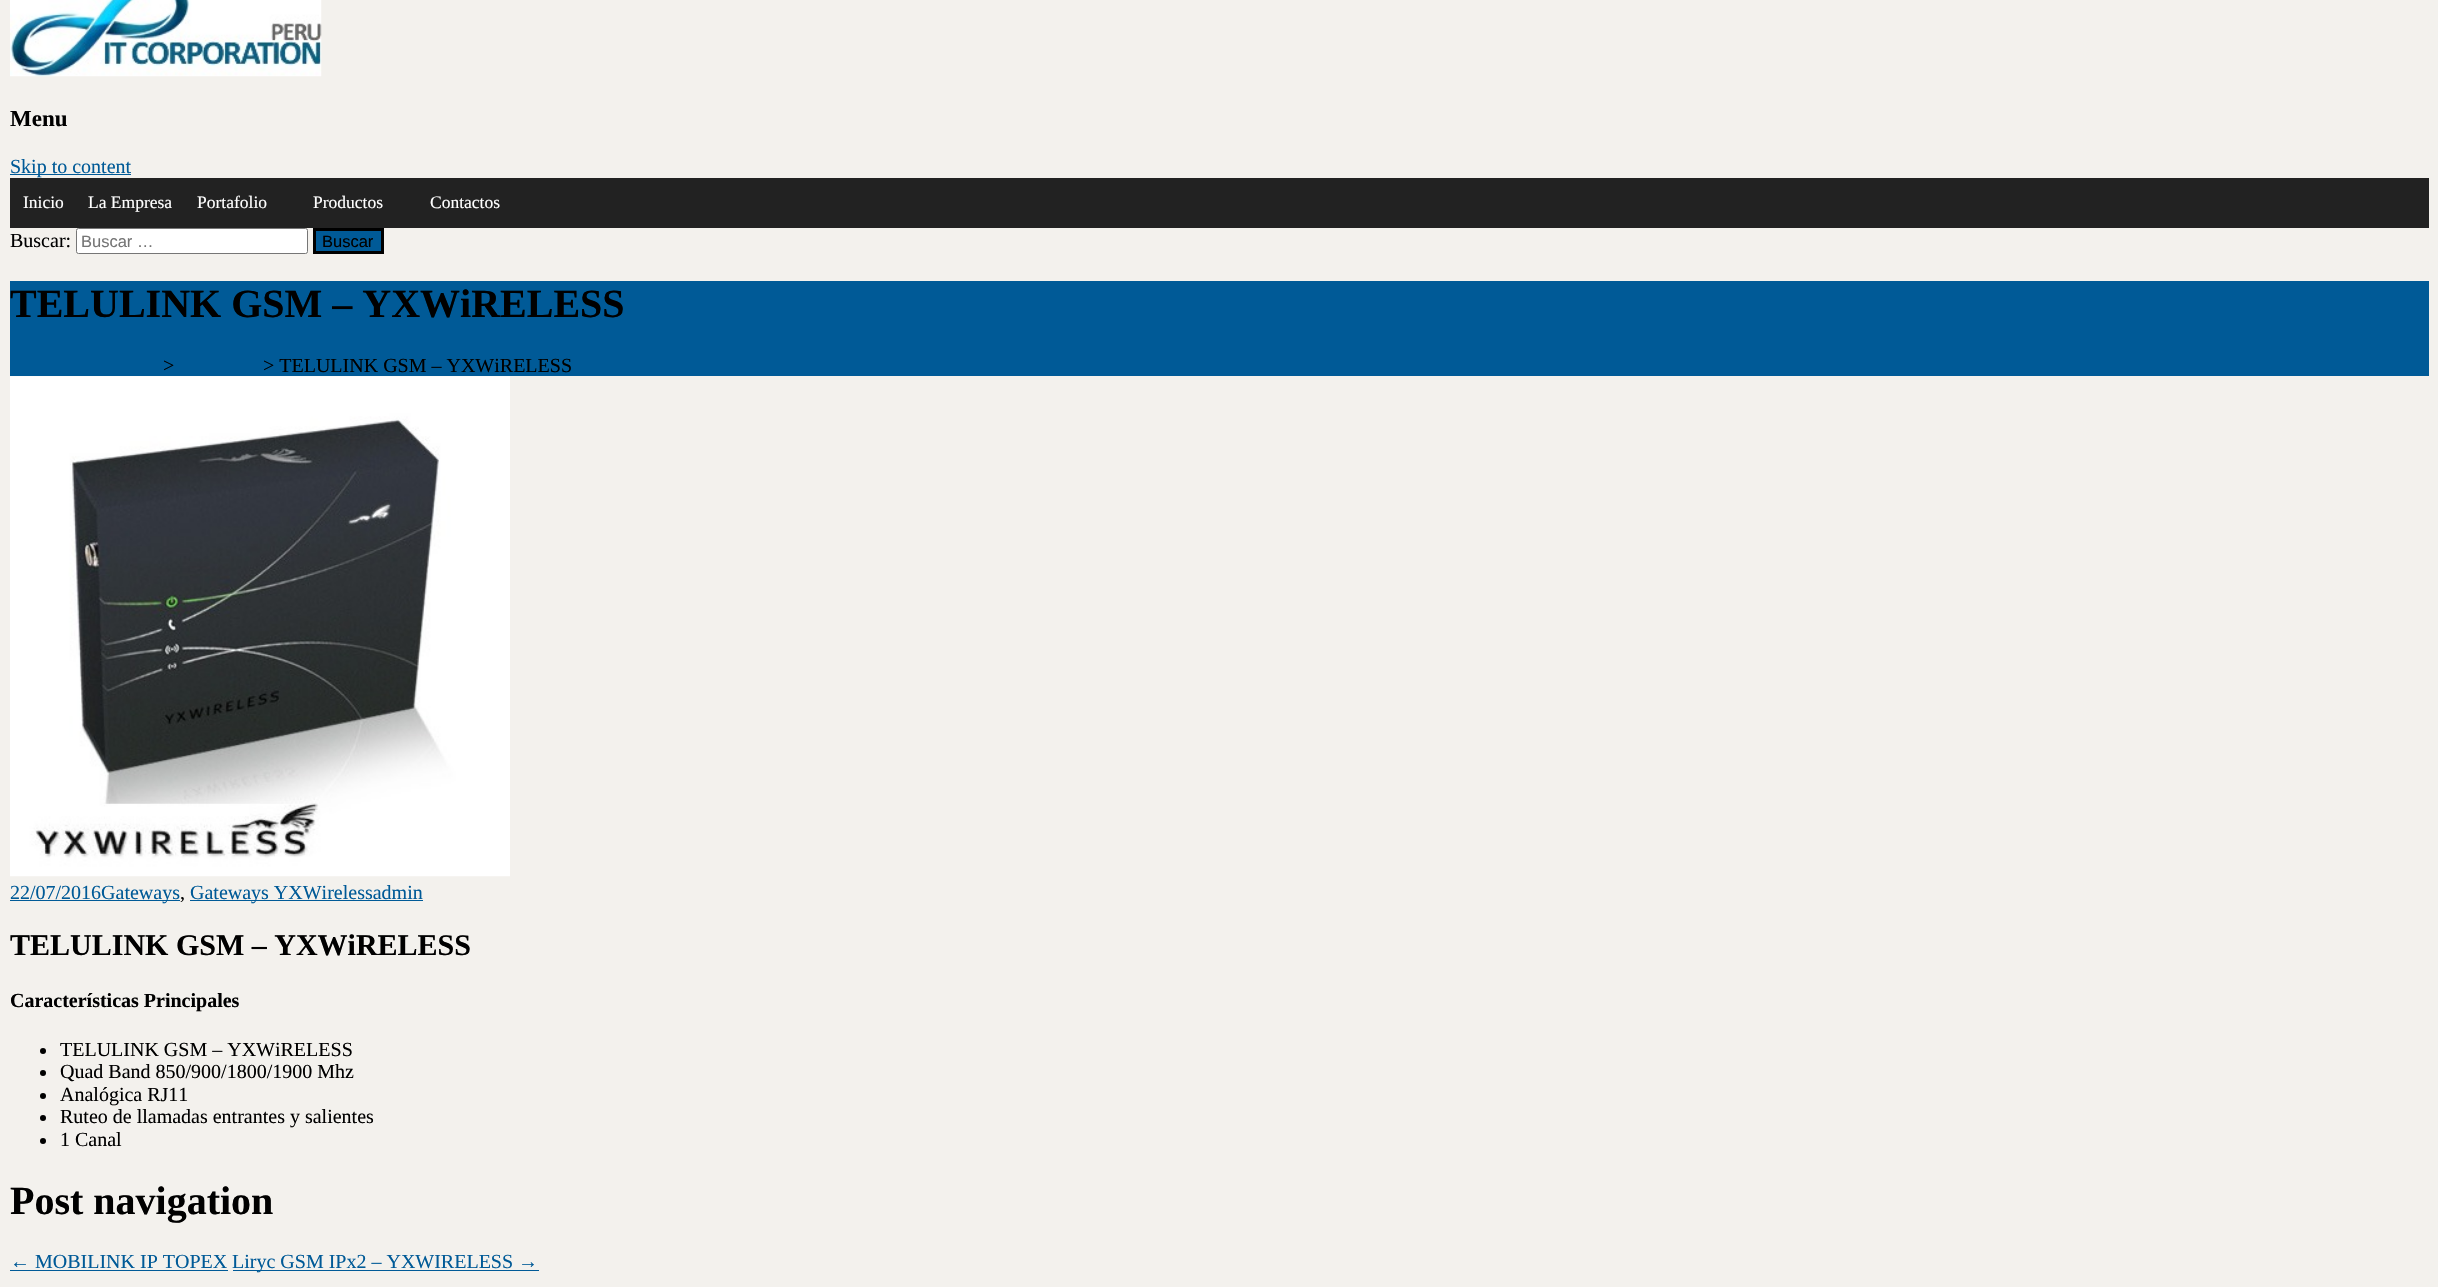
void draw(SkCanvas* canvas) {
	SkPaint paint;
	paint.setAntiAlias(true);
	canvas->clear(0xfff3f1ed);
	canvas->drawImageRect(SkImages::DeferredFromEncodedData(SkData::MakeFromFileName("img1.png")), SkRect::MakeXYWH(10, 0, 312, 77), SkSamplingOptions());
	SkFont f1(fontMgr->matchFamilyStyle("Liberation Serif", SkFontStyle::Bold()), 23);
	f1.setSubpixel(true);
	paint.setColor(0xff000000);
	canvas->drawString("Menu", 10, 126, f1, paint);
	paint.setColor(0xff005a97);
	canvas->drawRect(SkRect::MakeXYWH(10, 174, 121, 1), paint);
	SkFont f2(fontMgr->matchFamilyStyle("Liberation Serif", SkFontStyle::Normal()), 20);
	f2.setSubpixel(true);
	canvas->drawString("Skip to content", 10, 173, f2, paint);
	paint.setColor(0xff222222);
	canvas->drawRect(SkRect::MakeXYWH(10, 178, 2419, 50), paint);
	SkFont f3(fontMgr->matchFamilyStyle("Liberation Serif", SkFontStyle::Normal()), 17.5);
	f3.setSubpixel(true);
	paint.setColor(0xffffffff);
	canvas->drawString("Inicio", 23, 208, f3, paint);
	canvas->drawString("La Empresa", 88, 208, f3, paint);
	canvas->drawString("Portafolio", 197, 208, f3, paint);
	canvas->drawString("Productos", 313, 208, f3, paint);
	canvas->drawString("Contactos", 430, 208, f3, paint);
	paint.setColor(0xff000000);
	canvas->drawString("Buscar:", 10, 247, f2, paint);
	paint.setColor(0xffffffff);
	canvas->drawRoundRect(SkRect::MakeXYWH(76.5, 228.5, 231, 25), 2, 2, paint);
	paint.setStroke(true);
	paint.setStrokeWidth(1);
	paint.setColor(0xff767676);
	canvas->drawRoundRect(SkRect::MakeXYWH(76.5, 228.5, 231, 25), 2, 2, paint);
	SkFont f4(fontMgr->matchFamilyStyle("Liberation Sans", SkFontStyle::Normal()), 16.5);
	f4.setSubpixel(true);
	paint.setStroke(false);
	paint.setColor(0xff757575);
	canvas->drawString("Buscar …", 81, 247, f4, paint);
	paint.setColor(0xff005a97);
	canvas->drawRect(SkRect::MakeXYWH(314.5, 229.5, 68, 23), paint);
	paint.setStroke(true);
	paint.setStrokeWidth(3);
	paint.setColor(0xff000000);
	canvas->drawRect(SkRect::MakeXYWH(314.5, 229.5, 68, 23), paint);
	paint.setStroke(false);
	canvas->drawString("Buscar", 322, 247, f4, paint);
	paint.setColor(0xff005a97);
	canvas->drawRect(SkRect::MakeXYWH(10, 281, 2419, 95), paint);
	SkFont f5(fontMgr->matchFamilyStyle("Liberation Serif", SkFontStyle::Bold()), 40);
	f5.setSubpixel(true);
	paint.setColor(0xff000000);
	canvas->drawString("TELULINK GSM – YXWiRELESS", 10, 317, f5, paint);
	canvas->drawString(">", 163, 372, f2, paint);
	canvas->drawString("> TELULINK GSM – YXWiRELESS", 263, 372, f2, paint);
	canvas->drawImageRect(SkImages::DeferredFromEncodedData(SkData::MakeFromFileName("img2.png")), SkRect::MakeXYWH(10, 376, 500, 501), SkSamplingOptions());
	paint.setColor(0xff005a97);
	canvas->drawRect(SkRect::MakeXYWH(10, 900, 170, 1), paint);
	canvas->drawString("22/07/2016Gateways", 10, 899, f2, paint);
	paint.setColor(0xff000000);
	canvas->drawString(",", 180, 899, f2, paint);
	paint.setColor(0xff005a97);
	canvas->drawRect(SkRect::MakeXYWH(190, 900, 233, 1), paint);
	canvas->drawString("Gateways YXWirelessadmin", 190, 899, f2, paint);
	SkFont f6(fontMgr->matchFamilyStyle("Liberation Serif", SkFontStyle::Bold()), 30);
	f6.setSubpixel(true);
	paint.setColor(0xff000000);
	canvas->drawString("TELULINK GSM – YXWiRELESS", 10, 955, f6, paint);
	SkFont f7(fontMgr->matchFamilyStyle("Liberation Serif", SkFontStyle::Bold()), 20);
	f7.setSubpixel(true);
	canvas->drawString("Características Principales", 10, 1007, f7, paint);
	canvas->drawCircle(43, 1051, 3, paint);
	canvas->drawString("TELULINK GSM – YXWiRELESS", 60, 1056, f2, paint);
	canvas->drawCircle(43, 1073, 3, paint);
	canvas->drawString("Quad Band 850/900/1800/1900 Mhz", 60, 1078, f2, paint);
	canvas->drawCircle(43, 1096, 3, paint);
	canvas->drawString("Analógica RJ11", 60, 1101, f2, paint);
	canvas->drawCircle(43, 1118, 3, paint);
	canvas->drawString("Ruteo de llamadas entrantes y salientes", 60, 1123, f2, paint);
	canvas->drawCircle(43, 1141, 3, paint);
	canvas->drawString("1 Canal", 60, 1146, f2, paint);
	canvas->drawString("Post navigation", 10, 1214, f5, paint);
	paint.setColor(0xff005a97);
	canvas->drawString("← MOBILINK IP TOPEX", 10, 1268, f2, paint);
	canvas->drawRect(SkRect::MakeXYWH(10, 1270, 218, 1), paint);
	canvas->drawRect(SkRect::MakeXYWH(233, 1270, 306, 1), paint);
	canvas->drawString("Liryc GSM IPx2 – YXWIRELESS →", 232, 1268, f2, paint);
}
